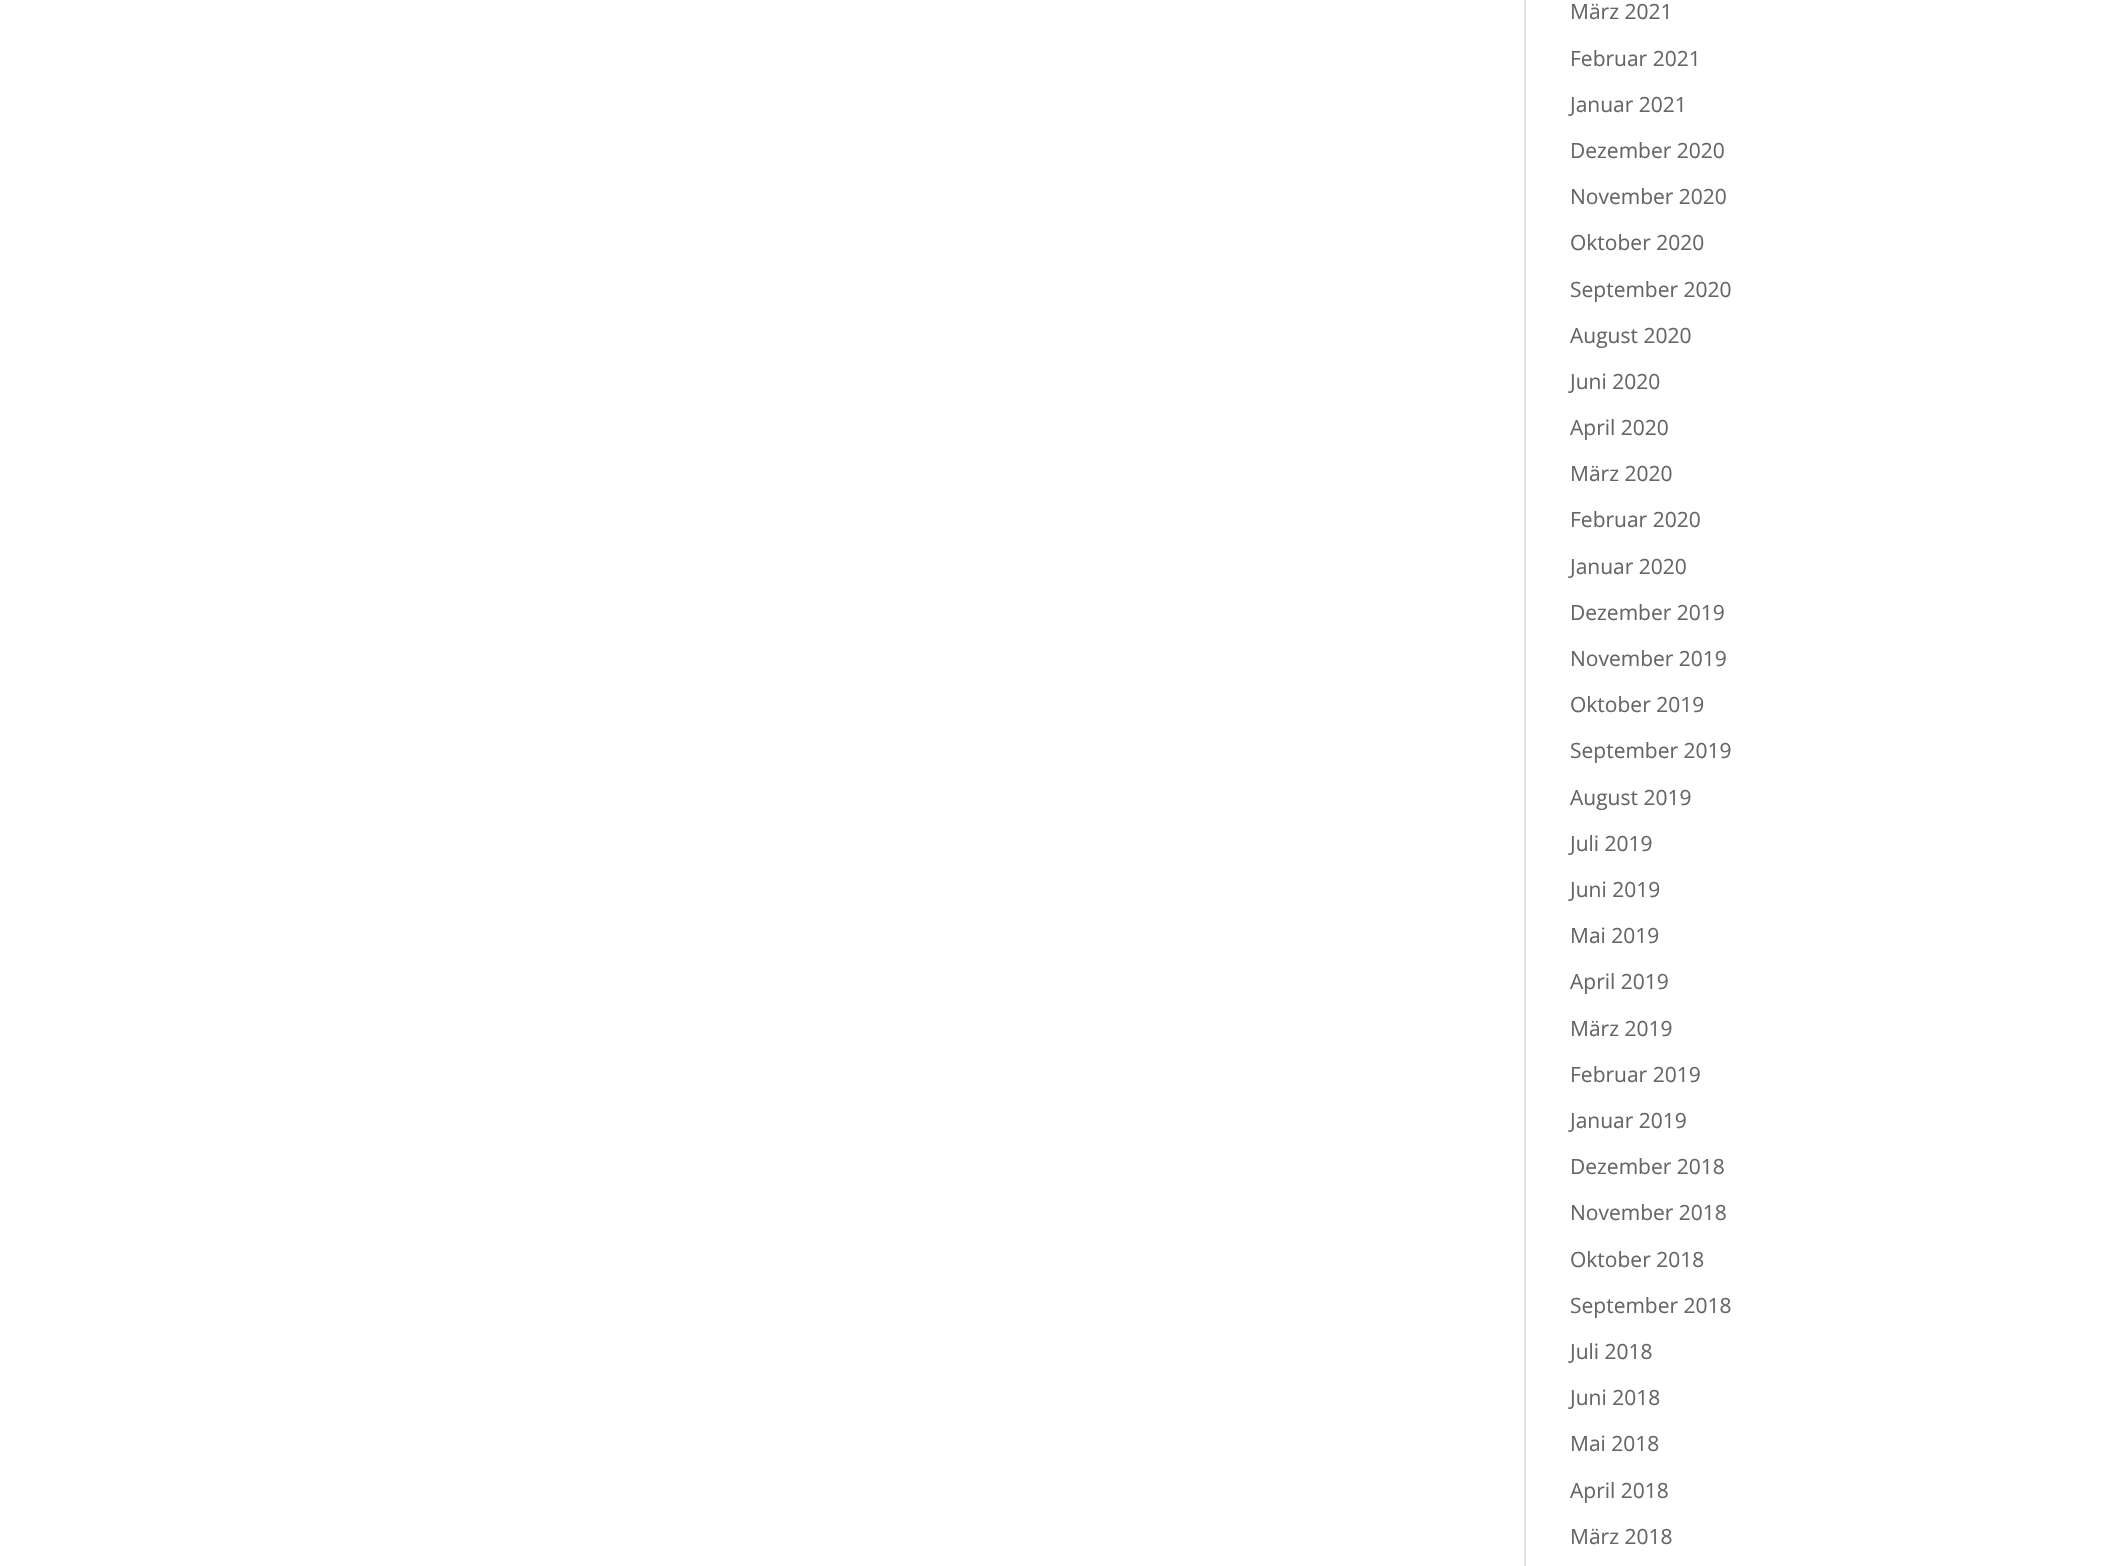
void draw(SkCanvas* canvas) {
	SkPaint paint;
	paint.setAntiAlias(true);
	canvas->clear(0xffffffff);
	paint.setColor(0xffe2e2e2);
	canvas->drawRect(SkRect::MakeXYWH(1524, 0, 2, 1566), paint);
	SkFont f1(fontMgr->matchFamilyStyle("Open Sans", SkFontStyle::Normal()), 21);
	f1.setSubpixel(true);
	paint.setColor(0xff666666);
	canvas->drawString("März 2021", 1570, 19, f1, paint);
	canvas->drawString("Februar 2021", 1570, 66, f1, paint);
	canvas->drawString("Januar 2021", 1570, 112, f1, paint);
	canvas->drawString("Dezember 2020", 1570, 158, f1, paint);
	canvas->drawString("November 2020", 1570, 204, f1, paint);
	canvas->drawString("Oktober 2020", 1570, 250, f1, paint);
	canvas->drawString("September 2020", 1570, 297, f1, paint);
	canvas->drawString("August 2020", 1570, 343, f1, paint);
	canvas->drawString("Juni 2020", 1570, 389, f1, paint);
	canvas->drawString("April 2020", 1570, 435, f1, paint);
	canvas->drawString("März 2020", 1570, 481, f1, paint);
	canvas->drawString("Februar 2020", 1570, 527, f1, paint);
	canvas->drawString("Januar 2020", 1570, 574, f1, paint);
	canvas->drawString("Dezember 2019", 1570, 620, f1, paint);
	canvas->drawString("November 2019", 1570, 666, f1, paint);
	canvas->drawString("Oktober 2019", 1570, 712, f1, paint);
	canvas->drawString("September 2019", 1570, 758, f1, paint);
	canvas->drawString("August 2019", 1570, 805, f1, paint);
	canvas->drawString("Juli 2019", 1570, 851, f1, paint);
	canvas->drawString("Juni 2019", 1570, 897, f1, paint);
	canvas->drawString("Mai 2019", 1570, 943, f1, paint);
	canvas->drawString("April 2019", 1570, 989, f1, paint);
	canvas->drawString("März 2019", 1570, 1036, f1, paint);
	canvas->drawString("Februar 2019", 1570, 1082, f1, paint);
	canvas->drawString("Januar 2019", 1570, 1128, f1, paint);
	canvas->drawString("Dezember 2018", 1570, 1174, f1, paint);
	canvas->drawString("November 2018", 1570, 1220, f1, paint);
	canvas->drawString("Oktober 2018", 1570, 1267, f1, paint);
	canvas->drawString("September 2018", 1570, 1313, f1, paint);
	canvas->drawString("Juli 2018", 1570, 1359, f1, paint);
	canvas->drawString("Juni 2018", 1570, 1405, f1, paint);
	canvas->drawString("Mai 2018", 1570, 1451, f1, paint);
	canvas->drawString("April 2018", 1570, 1498, f1, paint);
	canvas->drawString("März 2018", 1570, 1544, f1, paint);
}
